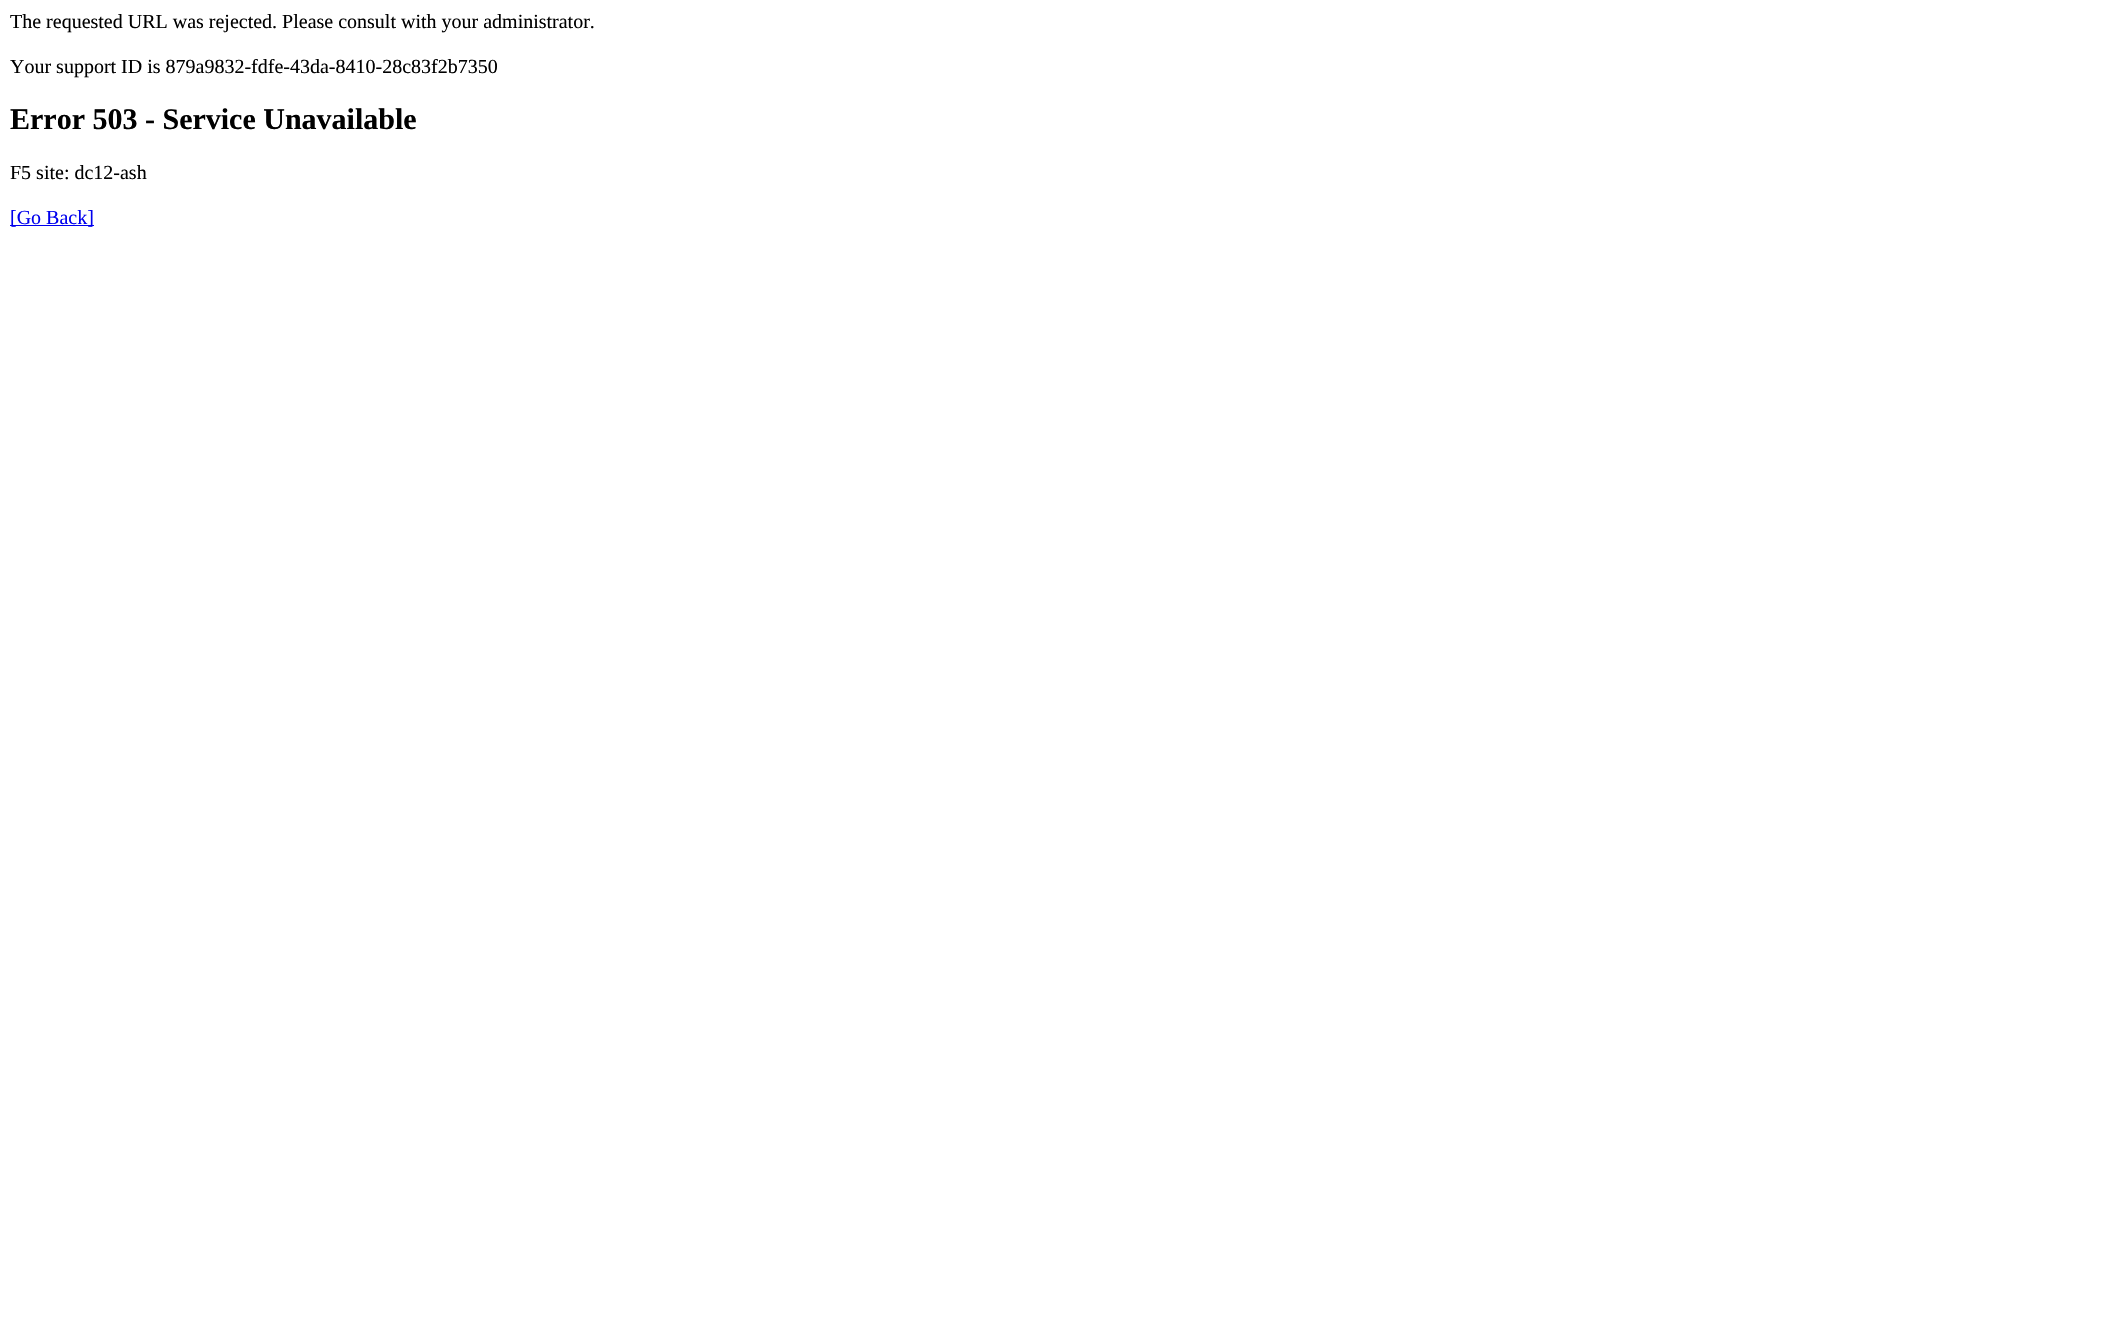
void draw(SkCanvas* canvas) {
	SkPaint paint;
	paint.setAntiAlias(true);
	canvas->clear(0xffffffff);
	SkFont f1(fontMgr->matchFamilyStyle("Liberation Serif", SkFontStyle::Normal()), 20);
	f1.setSubpixel(true);
	paint.setColor(0xff000000);
	canvas->drawString("The requested URL was rejected. Please consult with your administrator.", 10, 28, f1, paint);
	canvas->drawString("Your support ID is 879a9832-fdfe-43da-8410-28c83f2b7350", 10, 73, f1, paint);
	SkFont f2(fontMgr->matchFamilyStyle("Liberation Serif", SkFontStyle::Bold()), 30);
	f2.setSubpixel(true);
	canvas->drawString("Error 503 - Service Unavailable", 10, 129, f2, paint);
	canvas->drawString("F5 site: dc12-ash", 10, 179, f1, paint);
	paint.setColor(0xff0000ee);
	canvas->drawRect(SkRect::MakeXYWH(10, 225, 84, 1), paint);
	canvas->drawString("[Go Back]", 10, 224, f1, paint);
}
